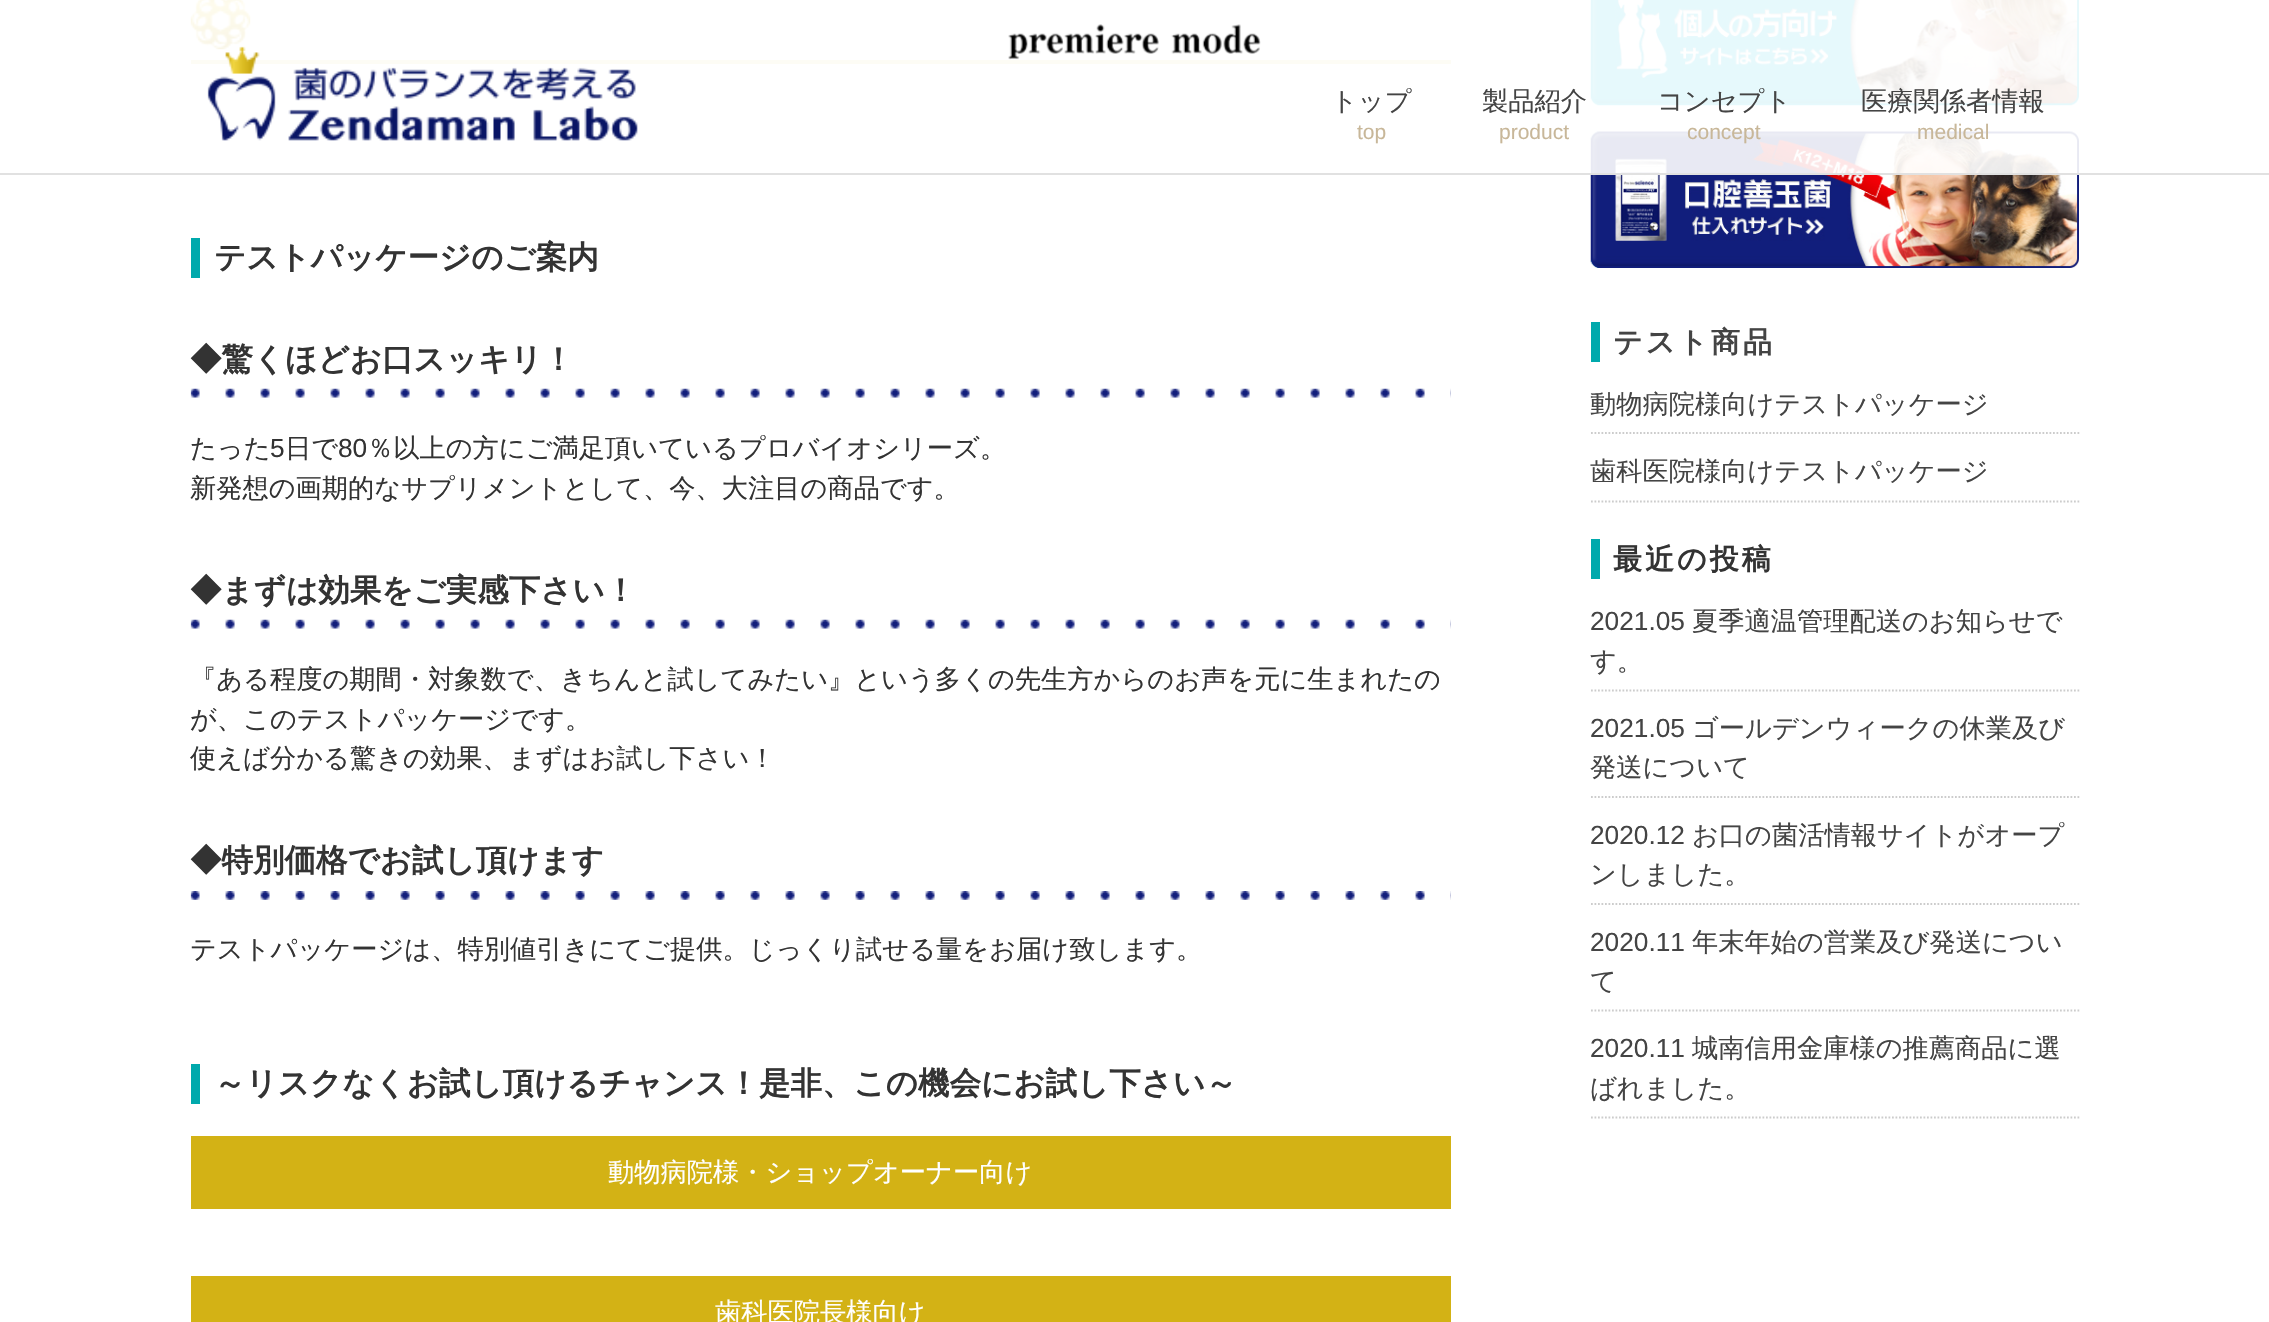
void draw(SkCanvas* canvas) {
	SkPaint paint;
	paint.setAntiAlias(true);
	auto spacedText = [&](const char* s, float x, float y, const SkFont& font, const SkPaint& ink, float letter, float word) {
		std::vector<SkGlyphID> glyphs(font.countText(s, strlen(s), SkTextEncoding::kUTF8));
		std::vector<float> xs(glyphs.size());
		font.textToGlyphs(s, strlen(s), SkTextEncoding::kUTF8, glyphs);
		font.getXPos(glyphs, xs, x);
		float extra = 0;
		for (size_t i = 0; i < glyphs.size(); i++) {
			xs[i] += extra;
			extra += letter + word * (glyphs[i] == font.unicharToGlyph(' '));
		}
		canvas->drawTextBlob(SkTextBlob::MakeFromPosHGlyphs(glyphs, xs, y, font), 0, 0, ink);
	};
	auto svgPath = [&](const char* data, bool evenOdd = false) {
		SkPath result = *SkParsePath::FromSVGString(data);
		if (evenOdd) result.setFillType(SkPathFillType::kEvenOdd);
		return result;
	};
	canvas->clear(0xffffffff);
	canvas->drawImageRect(SkImages::DeferredFromEncodedData(SkData::MakeFromFileName("img3.png")), SkRect::MakeXYWH(190, 0, 61, 50), SkSamplingOptions());
	paint.setColor(0xffeadb94);
	canvas->drawRect(SkRect::MakeXYWH(191, 60, 1260, 4), paint);
	canvas->drawImageRect(SkImages::DeferredFromEncodedData(SkData::MakeFromFileName("img7.png")), SkRect::MakeXYWH(1590, 0, 489, 106), SkSamplingOptions());
	canvas->drawImageRect(SkImages::DeferredFromEncodedData(SkData::MakeFromFileName("img8.png")), SkRect::MakeXYWH(1590, 131, 489, 137), SkSamplingOptions());
	paint.setColor(0xe6ffffff);
	canvas->drawRect(SkRect::MakeXYWH(190, 0, 1889, 173), paint);
	paint.setColor(0xffe1e1e1);
	canvas->drawRect(SkRect::MakeXYWH(0, 173, 2269, 2), paint);
	canvas->drawImageRect(SkImages::DeferredFromEncodedData(SkData::MakeFromFileName("img1.png")), SkRect::MakeXYWH(1008, 24, 253, 36), SkSamplingOptions());
	canvas->drawImageRect(SkImages::DeferredFromEncodedData(SkData::MakeFromFileName("img2.png")), SkRect::MakeXYWH(207, 46, 431, 95), SkSamplingOptions());
	SkFont f1(fontMgr->matchFamilyStyle("WenQuanYi Zen Hei", SkFontStyle(500, SkFontStyle::kNormal_Width, SkFontStyle::kUpright_Slant)), 26.25);
	f1.setSubpixel(true);
	paint.setColor(0xff444444);
	canvas->drawString("トップ", 1331, 110, f1, paint);
	SkFont f2(fontMgr->matchFamilyStyle("Liberation Sans", SkFontStyle::Normal()), 21);
	f2.setSubpixel(true);
	paint.setColor(0xffc8b799);
	canvas->drawString("top", 1357, 139, f2, paint);
	paint.setColor(0xff444444);
	canvas->drawString("製品紹介", 1482, 110, f1, paint);
	paint.setColor(0xffc8b799);
	canvas->drawString("product", 1499, 139, f2, paint);
	paint.setColor(0xff444444);
	canvas->drawString("コンセプト", 1657, 110, f1, paint);
	paint.setColor(0xffc8b799);
	canvas->drawString("concept", 1687, 139, f2, paint);
	paint.setColor(0xff444444);
	canvas->drawString("医療関係者情報", 1861, 110, f1, paint);
	paint.setColor(0xffc8b799);
	canvas->drawString("medical", 1917, 139, f2, paint);
	paint.setColor(0xff00a9ac);
	canvas->drawRect(SkRect::MakeXYWH(191, 238, 9, 40), paint);
	SkFont f3(fontMgr->matchFamilyStyle("WenQuanYi Zen Hei", SkFontStyle::Bold()), 31.5);
	f3.setSubpixel(true);
	paint.setColor(0xff333333);
	canvas->drawString("テストパッケージのご案内", 214, 268, f3, paint);
	canvas->drawString("◆驚くほどお口スッキリ！", 190, 370, f3, paint);
	canvas->drawImageRect(SkImages::DeferredFromEncodedData(SkData::MakeFromFileName("img4.png")), SkRect::MakeXYWH(190, 388, 1261, 10), SkSamplingOptions());
	canvas->drawString("たった", 190, 457, f1, paint);
	SkFont f4(fontMgr->matchFamilyStyle("Liberation Sans", SkFontStyle::Normal()), 26.25);
	f4.setSubpixel(true);
	canvas->drawString("5", 270, 457, f4, paint);
	canvas->drawString("日で", 285, 457, f1, paint);
	canvas->drawString("80", 338, 457, f4, paint);
	canvas->drawString("％以上の方にご満足頂いているプロバイオシリーズ。", 367, 457, f1, paint);
	canvas->drawString("新発想の画期的なサプリメントとして、今、大注目の商品です。", 190, 497, f1, paint);
	canvas->drawString("◆まずは効果をご実感下さい！", 190, 601, f3, paint);
	canvas->drawImageRect(SkImages::DeferredFromEncodedData(SkData::MakeFromFileName("img5.png")), SkRect::MakeXYWH(190, 619, 1261, 10), SkSamplingOptions());
	canvas->drawString("『ある程度の期間・対象数で、きちんと試してみたい』という多くの先生方からのお声を元に生まれたの", 190, 688, f1, paint);
	canvas->drawString("が、このテストパッケージです。", 190, 728, f1, paint);
	canvas->drawString("使えば分かる驚きの効果、まずはお試し下さい！", 190, 767, f1, paint);
	canvas->drawString("◆特別価格でお試し頂けます", 190, 871, f3, paint);
	canvas->drawImageRect(SkImages::DeferredFromEncodedData(SkData::MakeFromFileName("img6.png")), SkRect::MakeXYWH(190, 891, 1261, 9), SkSamplingOptions());
	canvas->drawString("テストパッケージは、特別値引きにてご提供。じっくり試せる量をお届け致します。", 190, 958, f1, paint);
	paint.setColor(0xff00a9ac);
	canvas->drawRect(SkRect::MakeXYWH(191, 1064, 9, 40), paint);
	paint.setColor(0xff333333);
	canvas->drawString("～リスクなくお試し頂けるチャンス！是非、この機会にお試し下さい～", 214, 1094, f3, paint);
	paint.setColor(0xffd3b215);
	canvas->drawRect(SkRect::MakeXYWH(191, 1136, 1260, 73), paint);
	paint.setColor(0xffffffff);
	canvas->drawString("動物病院様・ショップオーナー向け", 608, 1181, f1, paint);
	paint.setColor(0xffd3b215);
	canvas->drawRect(SkRect::MakeXYWH(191, 1276, 1260, 46), paint);
	paint.setColor(0xffffffff);
	canvas->drawString("歯科医院長様向け", 715, 1321, f1, paint);
	paint.setColor(0xff00a9ac);
	canvas->drawRect(SkRect::MakeXYWH(1591, 322, 9, 40), paint);
	SkFont f5(fontMgr->matchFamilyStyle("WenQuanYi Zen Hei", SkFontStyle::Bold()), 29);
	f5.setSubpixel(true);
	paint.setColor(0xff444444);
	spacedText("テスト商品", 1613, 352, f5, paint, 3, 0);
	paint.setStroke(true);
	paint.setStrokeWidth(1.8);
	paint.setColor(0xffcccccc);
	paint.setPathEffect(SkDashPathEffect::Make({{1.75f, 1.75f}}, 0));
	canvas->drawPath(svgPath("M1591 433H2081"), paint);
	paint.setPathEffect(nullptr);
	paint.setStroke(false);
	paint.setColor(0xff444444);
	canvas->drawString("動物病院様向けテストパッケージ", 1590, 413, f1, paint);
	paint.setStroke(true);
	paint.setColor(0xffcccccc);
	paint.setPathEffect(SkDashPathEffect::Make({{1.75f, 1.75f}}, 0));
	canvas->drawPath(svgPath("M1591 501.5H2081"), paint);
	paint.setPathEffect(nullptr);
	paint.setStroke(false);
	paint.setColor(0xff444444);
	canvas->drawString("歯科医院様向けテストパッケージ", 1590, 480, f1, paint);
	paint.setColor(0xff00a9ac);
	canvas->drawRect(SkRect::MakeXYWH(1591, 539, 9, 40), paint);
	paint.setColor(0xff333333);
	spacedText("最近の投稿", 1613, 569, f5, paint, 3, 0);
	paint.setStroke(true);
	paint.setColor(0xffcccccc);
	paint.setPathEffect(SkDashPathEffect::Make({{1.75f, 1.75f}}, 0));
	canvas->drawPath(svgPath("M1591 690.5H2081"), paint);
	paint.setPathEffect(nullptr);
	paint.setStroke(false);
	paint.setColor(0xff444444);
	canvas->drawString("2021.05", 1590, 630, f4, paint);
	canvas->drawString("夏季適温管理配送のお知らせで", 1692, 630, f1, paint);
	canvas->drawString("す。", 1590, 670, f1, paint);
	paint.setStroke(true);
	paint.setColor(0xffcccccc);
	paint.setPathEffect(SkDashPathEffect::Make({{1.75f, 1.75f}}, 0));
	canvas->drawPath(svgPath("M1591 797H2081"), paint);
	paint.setPathEffect(nullptr);
	paint.setStroke(false);
	paint.setColor(0xff444444);
	canvas->drawString("2021.05", 1590, 737, f4, paint);
	canvas->drawString("ゴールデンウィークの休業及び", 1692, 737, f1, paint);
	canvas->drawString("発送について", 1590, 776, f1, paint);
	paint.setStroke(true);
	paint.setColor(0xffcccccc);
	paint.setPathEffect(SkDashPathEffect::Make({{1.75f, 1.75f}}, 0));
	canvas->drawPath(svgPath("M1591 904H2081"), paint);
	paint.setPathEffect(nullptr);
	paint.setStroke(false);
	paint.setColor(0xff444444);
	canvas->drawString("2020.12", 1590, 844, f4, paint);
	canvas->drawString("お口の菌活情報サイトがオープ", 1692, 844, f1, paint);
	canvas->drawString("ンしました。", 1590, 883, f1, paint);
	paint.setStroke(true);
	paint.setColor(0xffcccccc);
	paint.setPathEffect(SkDashPathEffect::Make({{1.75f, 1.75f}}, 0));
	canvas->drawPath(svgPath("M1591 1010.5H2081"), paint);
	paint.setPathEffect(nullptr);
	paint.setStroke(false);
	paint.setColor(0xff444444);
	canvas->drawString("2020.11", 1590, 951, f4, paint);
	canvas->drawString("年末年始の営業及び発送につい", 1692, 951, f1, paint);
	canvas->drawString("て", 1590, 990, f1, paint);
	paint.setStroke(true);
	paint.setColor(0xffcccccc);
	paint.setPathEffect(SkDashPathEffect::Make({{1.75f, 1.75f}}, 0));
	canvas->drawPath(svgPath("M1591 1117.5H2081"), paint);
	paint.setPathEffect(nullptr);
	paint.setStroke(false);
	paint.setColor(0xff444444);
	canvas->drawString("2020.11", 1590, 1057, f4, paint);
	canvas->drawString("城南信用金庫様の推薦商品に選", 1692, 1057, f1, paint);
	canvas->drawString("ばれました。", 1590, 1097, f1, paint);
}
